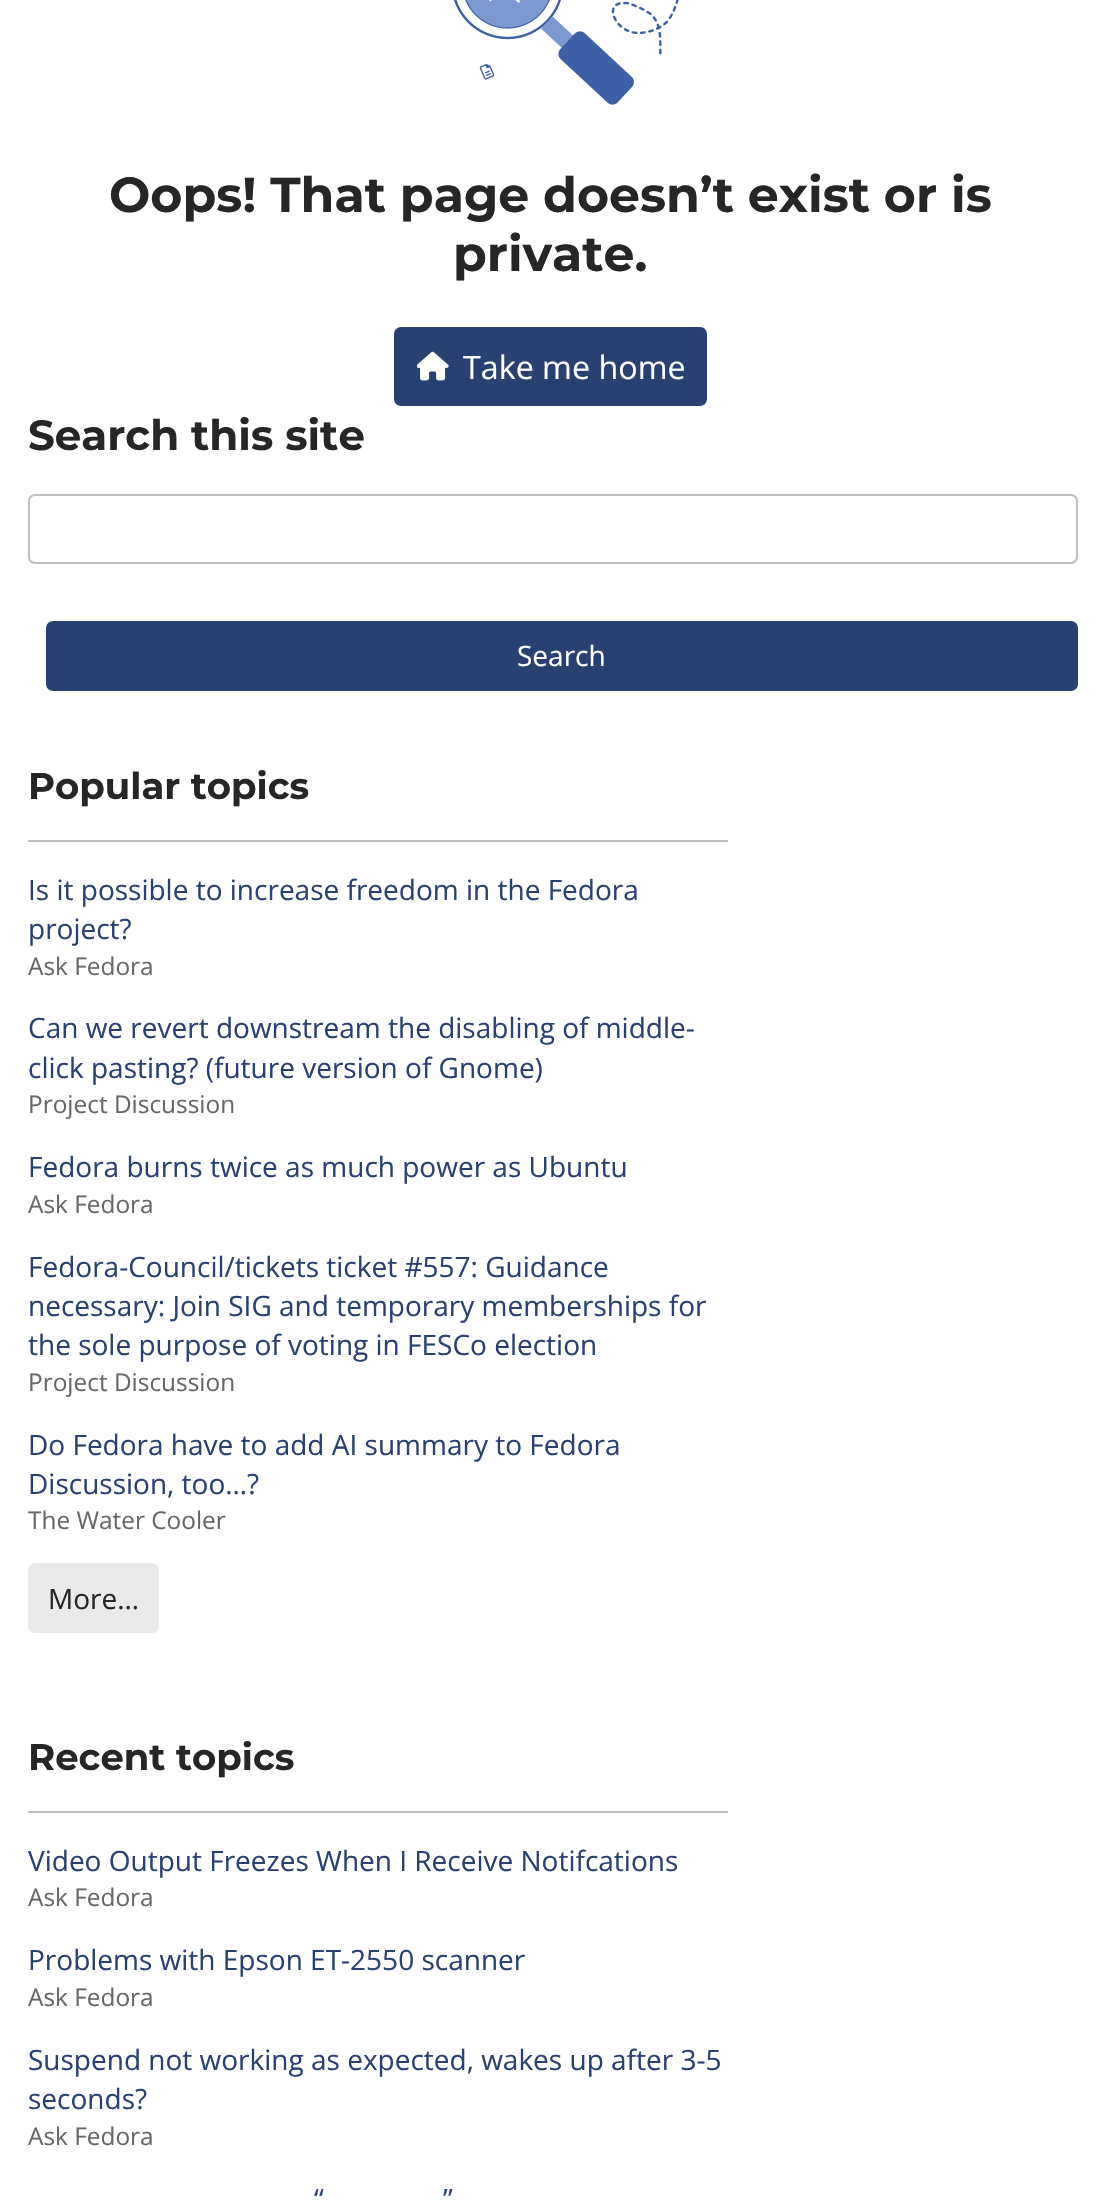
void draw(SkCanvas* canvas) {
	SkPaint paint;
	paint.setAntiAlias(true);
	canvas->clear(0xffffffff);
	canvas->drawImageRect(SkImages::DeferredFromEncodedData(SkData::MakeFromFileName("img1.png")), SkRect::MakeXYWH(454, 0, 225, 105), SkSamplingOptions());
	SkFont f1(fontMgr->matchFamilyStyle("Montserrat", SkFontStyle(100, SkFontStyle::kNormal_Width, SkFontStyle::kUpright_Slant)), 49);
	f1.setSubpixel(true);
	paint.setColor(0xff262626);
	canvas->drawString("Oops! That page doesn’t exist or is", 109, 212, f1, paint);
	canvas->drawString("private.", 453, 271, f1, paint);
	paint.setColor(0xff294172);
	canvas->drawRoundRect(SkRect::MakeXYWH(394, 327, 313, 79), 7, 7, paint);
	canvas->drawImageRect(SkImages::DeferredFromEncodedData(SkData::MakeFromFileName("img2.png")), SkRect::MakeXYWH(417, 351, 32, 30), SkSamplingOptions());
	SkFont f2(fontMgr->matchFamilyStyle("Open Sans", SkFontStyle::Normal()), 32.25);
	f2.setSubpixel(true);
	paint.setColor(0xffffffff);
	canvas->drawString("Take me home", 463, 379, f2, paint);
	SkFont f3(fontMgr->matchFamilyStyle("Montserrat", SkFontStyle(100, SkFontStyle::kNormal_Width, SkFontStyle::kUpright_Slant)), 42);
	f3.setSubpixel(true);
	paint.setColor(0xff262626);
	canvas->drawString("Search this site", 28, 450, f3, paint);
	paint.setStroke(true);
	paint.setStrokeWidth(2);
	paint.setColor(0xffbebebe);
	canvas->drawRoundRect(SkRect::MakeXYWH(29, 495, 1048, 68), 6, 6, paint);
	paint.setStroke(false);
	paint.setColor(0xff294172);
	canvas->drawRoundRect(SkRect::MakeXYWH(46, 621, 1032, 70), 7, 7, paint);
	SkFont f4(fontMgr->matchFamilyStyle("Open Sans", SkFontStyle::Normal()), 28);
	f4.setSubpixel(true);
	paint.setColor(0xffffffff);
	canvas->drawString("Search", 517, 666, f4, paint);
	paint.setColor(0xffbebebe);
	canvas->drawRect(SkRect::MakeXYWH(28, 840, 700, 2), paint);
	SkFont f5(fontMgr->matchFamilyStyle("Montserrat", SkFontStyle(100, SkFontStyle::kNormal_Width, SkFontStyle::kUpright_Slant)), 37);
	f5.setSubpixel(true);
	paint.setColor(0xff262626);
	canvas->drawString("Popular topics", 28, 799, f5, paint);
	paint.setColor(0xff294172);
	canvas->drawString("Is it possible to increase freedom in the Fedora", 28, 900, f4, paint);
	canvas->drawString("project?", 28, 939, f4, paint);
	SkFont f6(fontMgr->matchFamilyStyle("Open Sans", SkFontStyle::Normal()), 24.4);
	f6.setSubpixel(true);
	paint.setColor(0xff676767);
	canvas->drawString("Ask Fedora", 28, 975, f6, paint);
	paint.setColor(0xff294172);
	canvas->drawString("Can we revert downstream the disabling of middle-", 28, 1038, f4, paint);
	canvas->drawString("click pasting? (future version of Gnome)", 28, 1078, f4, paint);
	paint.setColor(0xff676767);
	canvas->drawString("Project Discussion", 28, 1113, f6, paint);
	paint.setColor(0xff294172);
	canvas->drawString("Fedora burns twice as much power as Ubuntu", 28, 1177, f4, paint);
	paint.setColor(0xff676767);
	canvas->drawString("Ask Fedora", 28, 1213, f6, paint);
	paint.setColor(0xff294172);
	canvas->drawString("Fedora-Council/tickets ticket #557: Guidance", 28, 1277, f4, paint);
	canvas->drawString("necessary: Join SIG and temporary memberships for", 28, 1316, f4, paint);
	canvas->drawString("the sole purpose of voting in FESCo election", 28, 1355, f4, paint);
	paint.setColor(0xff676767);
	canvas->drawString("Project Discussion", 28, 1391, f6, paint);
	paint.setColor(0xff294172);
	canvas->drawString("Do Fedora have to add AI summary to Fedora", 28, 1455, f4, paint);
	canvas->drawString("Discussion, too…?", 28, 1494, f4, paint);
	paint.setColor(0xff676767);
	canvas->drawString("The Water Cooler", 28, 1529, f6, paint);
	paint.setColor(0xffe9e9e9);
	canvas->drawRoundRect(SkRect::MakeXYWH(28, 1563, 131, 70), 7, 7, paint);
	paint.setColor(0xff262626);
	canvas->drawString("More…", 48, 1609, f4, paint);
	paint.setColor(0xffbebebe);
	canvas->drawRect(SkRect::MakeXYWH(28, 1811, 700, 2), paint);
	paint.setColor(0xff262626);
	canvas->drawString("Recent topics", 28, 1770, f5, paint);
	paint.setColor(0xff294172);
	canvas->drawString("Video Output Freezes When I Receive Notifcations", 28, 1871, f4, paint);
	paint.setColor(0xff676767);
	canvas->drawString("Ask Fedora", 28, 1906, f6, paint);
	paint.setColor(0xff294172);
	canvas->drawString("Problems with Epson ET-2550 scanner", 28, 1970, f4, paint);
	paint.setColor(0xff676767);
	canvas->drawString("Ask Fedora", 28, 2006, f6, paint);
	paint.setColor(0xff294172);
	canvas->drawString("Suspend not working as expected, wakes up after 3-5", 28, 2070, f4, paint);
	canvas->drawString("seconds?", 28, 2109, f4, paint);
	paint.setColor(0xff676767);
	canvas->drawString("Ask Fedora", 28, 2145, f6, paint);
	paint.setColor(0xff294172);
	canvas->drawString("“", 314, 2209, f4, paint);
	canvas->drawString("”", 443, 2209, f4, paint);
}
